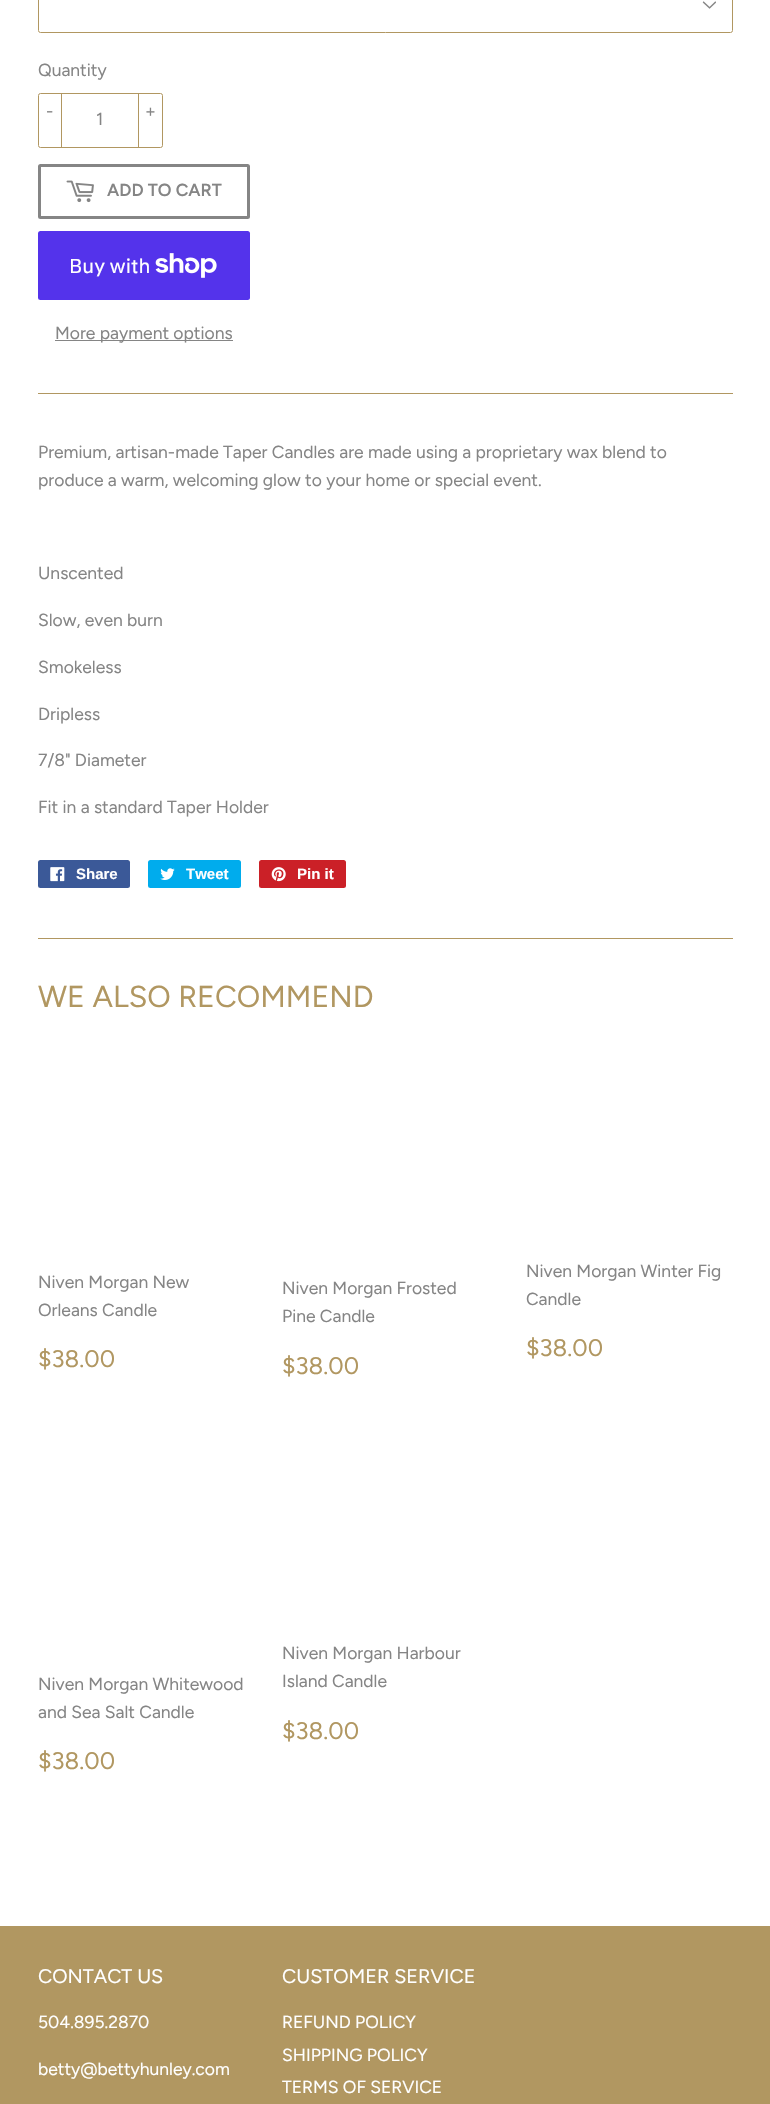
void draw(SkCanvas* canvas) {
	SkPaint paint;
	paint.setAntiAlias(true);
	canvas->clear(0xffffffff);
	canvas->drawImageRect(SkImages::DeferredFromEncodedData(SkData::MakeFromFileName("img1.png")), SkRect::MakeXYWH(702, 1, 14, 8), SkSamplingOptions());
	paint.setStroke(true);
	paint.setStrokeWidth(1);
	paint.setColor(0xffb19761);
	canvas->drawRoundRect(SkRect::MakeXYWH(38.5, -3.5, 694, 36), 2, 2, paint);
	SkFont f1(fontMgr->matchFamilyStyle("Figtree", SkFontStyle::Normal()), 17.5);
	f1.setSubpixel(true);
	paint.setStroke(false);
	paint.setColor(0xff858585);
	canvas->drawString("Quantity", 38, 76, f1, paint);
	paint.setStroke(true);
	paint.setColor(0xffb19761);
	canvas->drawRoundRect(SkRect::MakeXYWH(38.5, 93.5, 124, 54), 2, 2, paint);
	paint.setStroke(false);
	canvas->drawRect(SkRect::MakeXYWH(61, 93, 1, 55), paint);
	paint.setColor(0xff858585);
	canvas->drawString("-", 46, 117, f1, paint);
	canvas->drawString("1", 96, 125, f1, paint);
	paint.setColor(0xffb19761);
	canvas->drawRect(SkRect::MakeXYWH(138, 93, 1, 55), paint);
	paint.setColor(0xff858585);
	canvas->drawString("+", 145, 117, f1, paint);
	paint.setStroke(true);
	paint.setStrokeWidth(3);
	canvas->drawRoundRect(SkRect::MakeXYWH(39.5, 165.5, 209, 52), 1, 1, paint);
	canvas->drawImageRect(SkImages::DeferredFromEncodedData(SkData::MakeFromFileName("img2.png")), SkRect::MakeXYWH(66, 180, 28, 23), SkSamplingOptions());
	SkFont f2(fontMgr->matchFamilyStyle("Figtree", SkFontStyle(600, SkFontStyle::kNormal_Width, SkFontStyle::kUpright_Slant)), 17.5);
	f2.setSubpixel(true);
	paint.setStroke(false);
	canvas->drawString("ADD TO CART", 107, 196, f2, paint);
	paint.setColor(0xff5433eb);
	canvas->drawRoundRect(SkRect::MakeXYWH(38, 231, 212, 69), 2.5, 2.5, paint);
	SkFont f3(fontMgr->matchFamilyStyle("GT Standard", SkFontStyle::Normal()), 20);
	f3.setSubpixel(true);
	paint.setColor(0xffffffff);
	canvas->drawString("Buy with", 69, 273, f3, paint);
	canvas->drawImageRect(SkImages::DeferredFromEncodedData(SkData::MakeFromFileName("img3.png")), SkRect::MakeXYWH(155, 253, 62, 25), SkSamplingOptions());
	paint.setColor(0xff858585);
	canvas->drawRect(SkRect::MakeXYWH(55, 340, 178, 1), paint);
	canvas->drawString("More payment options", 55, 339, f1, paint);
	paint.setColor(0xffb19761);
	canvas->drawRect(SkRect::MakeXYWH(38, 393, 695, 1), paint);
	paint.setColor(0xff858585);
	canvas->drawString("Premium, artisan-made Taper Candles are made using a proprietary wax blend to", 38, 458, f1, paint);
	canvas->drawString("produce a warm, welcoming glow to your home or special event.", 38, 486, f1, paint);
	canvas->drawString("Unscented", 38, 579, f1, paint);
	canvas->drawString("Slow, even burn", 38, 626, f1, paint);
	canvas->drawString("Smokeless", 38, 673, f1, paint);
	canvas->drawString("Dripless", 38, 720, f1, paint);
	canvas->drawString("7/8\" Diameter", 38, 766, f1, paint);
	canvas->drawString("Fit in a standard Taper Holder", 38, 813, f1, paint);
	paint.setColor(0xff3b5998);
	canvas->drawRoundRect(SkRect::MakeXYWH(38, 860, 92, 28), 2.5, 2.5, paint);
	canvas->drawImageRect(SkImages::DeferredFromEncodedData(SkData::MakeFromFileName("img4.png")), SkRect::MakeXYWH(50, 867, 15, 15), SkSamplingOptions());
	SkFont f4(fontMgr->matchFamilyStyle("Liberation Sans", SkFontStyle::Bold()), 15);
	f4.setSubpixel(true);
	paint.setColor(0xffffffff);
	canvas->drawString("Share", 76, 879, f4, paint);
	paint.setColor(0xff00aced);
	canvas->drawRoundRect(SkRect::MakeXYWH(148, 860, 93, 28), 2.5, 2.5, paint);
	canvas->drawImageRect(SkImages::DeferredFromEncodedData(SkData::MakeFromFileName("img5.png")), SkRect::MakeXYWH(160, 868, 15, 12), SkSamplingOptions());
	paint.setColor(0xffffffff);
	canvas->drawString("Tweet", 186, 879, f4, paint);
	paint.setColor(0xffcb2027);
	canvas->drawRoundRect(SkRect::MakeXYWH(259, 860, 87, 28), 2.5, 2.5, paint);
	canvas->drawImageRect(SkImages::DeferredFromEncodedData(SkData::MakeFromFileName("img6.png")), SkRect::MakeXYWH(271, 867, 15, 15), SkSamplingOptions());
	paint.setColor(0xffffffff);
	canvas->drawString("Pin it", 297, 879, f4, paint);
	paint.setColor(0xffb19761);
	canvas->drawRect(SkRect::MakeXYWH(38, 938, 695, 1), paint);
	SkFont f5(fontMgr->matchFamilyStyle("Figtree", SkFontStyle::Normal()), 30.25);
	f5.setSubpixel(true);
	canvas->drawString("WE ALSO RECOMMEND", 38, 1007, f5, paint);
	paint.setColor(0xff858585);
	canvas->drawString("Niven Morgan New", 38, 1288, f1, paint);
	canvas->drawString("Orleans Candle", 38, 1316, f1, paint);
	SkFont f6(fontMgr->matchFamilyStyle("Figtree", SkFontStyle::Normal()), 24);
	f6.setSubpixel(true);
	paint.setColor(0xffb19761);
	canvas->drawString("$38.00", 38, 1367, f6, paint);
	paint.setColor(0xff858585);
	canvas->drawString("Niven Morgan Frosted", 282, 1294, f1, paint);
	canvas->drawString("Pine Candle", 282, 1322, f1, paint);
	paint.setColor(0xffb19761);
	canvas->drawString("$38.00", 282, 1374, f6, paint);
	paint.setColor(0xff858585);
	canvas->drawString("Niven Morgan Winter Fig", 526, 1277, f1, paint);
	canvas->drawString("Candle", 526, 1305, f1, paint);
	paint.setColor(0xffb19761);
	canvas->drawString("$38.00", 526, 1356, f6, paint);
	paint.setColor(0xff858585);
	canvas->drawString("Niven Morgan Whitewood", 38, 1690, f1, paint);
	canvas->drawString("and Sea Salt Candle", 38, 1718, f1, paint);
	paint.setColor(0xffb19761);
	canvas->drawString("$38.00", 38, 1769, f6, paint);
	paint.setColor(0xff858585);
	canvas->drawString("Niven Morgan Harbour", 282, 1659, f1, paint);
	canvas->drawString("Island Candle", 282, 1687, f1, paint);
	paint.setColor(0xffb19761);
	canvas->drawString("$38.00", 282, 1739, f6, paint);
	canvas->drawRect(SkRect::MakeXYWH(0, 1926, 770, 178), paint);
	SkFont f7(fontMgr->matchFamilyStyle("Figtree", SkFontStyle::Normal()), 19.75);
	f7.setSubpixel(true);
	paint.setColor(0xffffffff);
	canvas->drawString("CONTACT US", 38, 1983, f7, paint);
	canvas->drawString("504.895.2870", 38, 2028, f1, paint);
	canvas->drawString("betty@bettyhunley.com", 38, 2075, f1, paint);
	canvas->drawString("CUSTOMER SERVICE", 282, 1983, f7, paint);
	canvas->drawString("REFUND POLICY", 282, 2028, f1, paint);
	canvas->drawString("SHIPPING POLICY", 282, 2061, f1, paint);
	canvas->drawString("TERMS OF SERVICE", 282, 2093, f1, paint);
}
